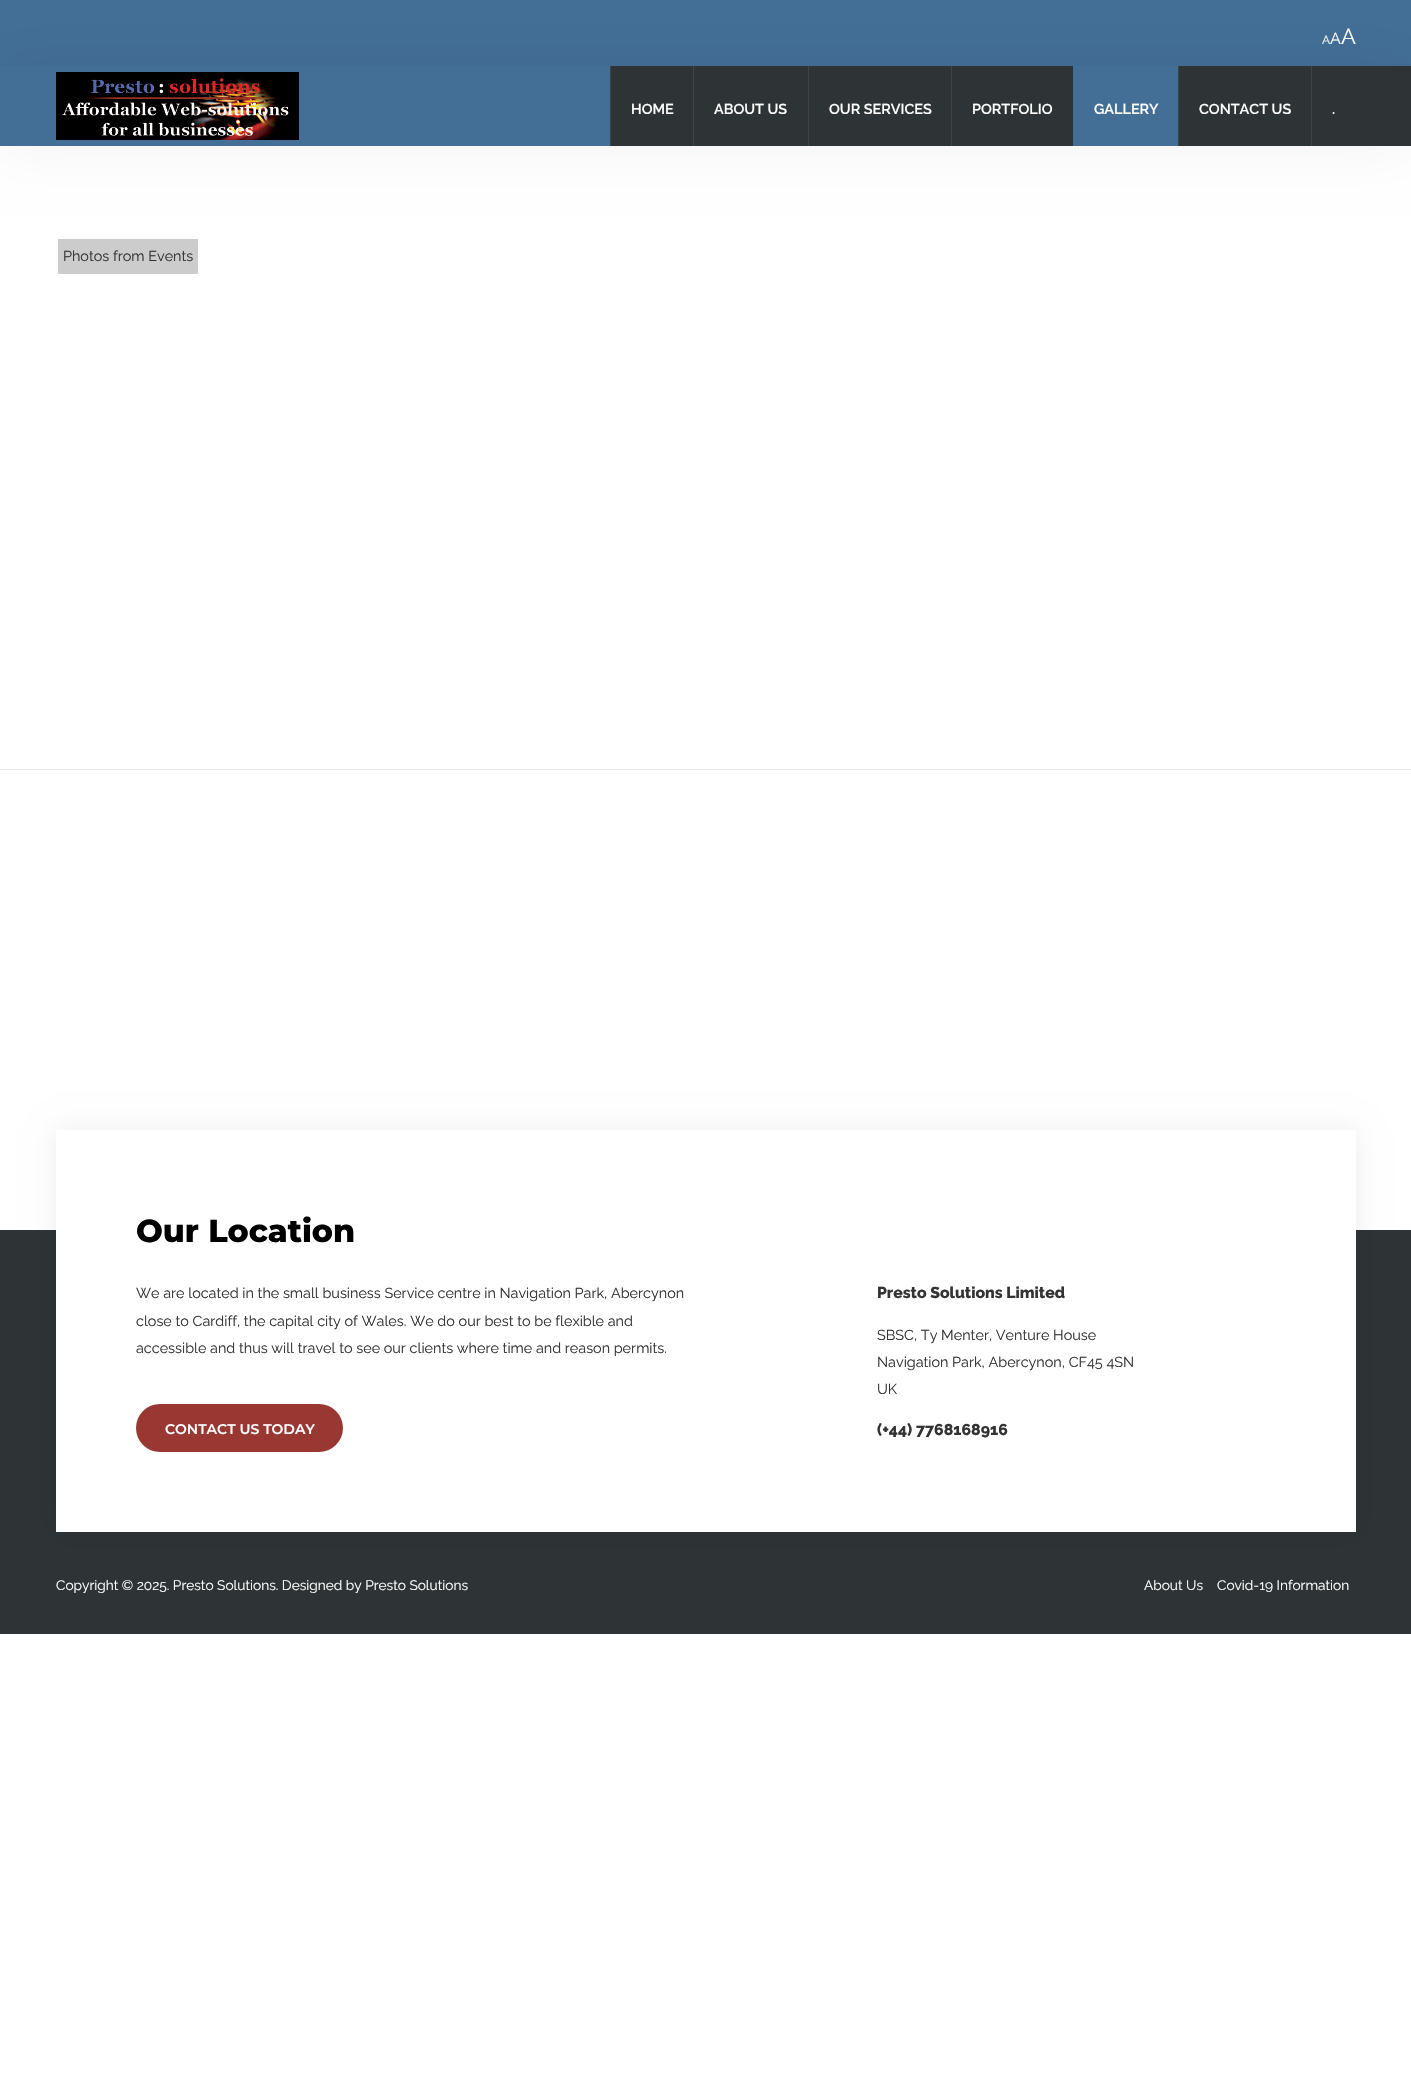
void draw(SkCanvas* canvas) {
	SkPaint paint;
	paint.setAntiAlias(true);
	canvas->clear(0xffffffff);
	paint.setColor(0xff436e96);
	canvas->drawRect(SkRect::MakeXYWH(0, 0, 1411, 66), paint);
	SkFont f1(fontMgr->matchFamilyStyle("Raleway", SkFontStyle::Normal()), 12);
	f1.setSubpixel(true);
	paint.setColor(0xffffffff);
	canvas->drawString("A", 1322, 44, f1, paint);
	SkFont f2(fontMgr->matchFamilyStyle("Raleway", SkFontStyle::Normal()), 16);
	f2.setSubpixel(true);
	canvas->drawString("A", 1330, 44, f2, paint);
	SkFont f3(fontMgr->matchFamilyStyle("Raleway", SkFontStyle::Normal()), 22);
	f3.setSubpixel(true);
	canvas->drawString("A", 1341, 44, f3, paint);
	paint.setColor(0x0d000000);
	paint.setMaskFilter(SkMaskFilter::MakeBlur(kNormal_SkBlurStyle, 30));
	canvas->drawRect(SkRect::MakeXYWH(0, 66, 1411, 80), paint);
	paint.setMaskFilter(nullptr);
	paint.setColor(0xff2e3335);
	canvas->drawRect(SkRect::MakeXYWH(1179, 66, 232, 80), paint);
	paint.setColor(0xff436e96);
	canvas->drawRect(SkRect::MakeXYWH(0, 66, 610, 80), paint);
	canvas->drawImageRect(SkImages::DeferredFromEncodedData(SkData::MakeFromFileName("img1.png")), SkRect::MakeXYWH(56, 72, 243, 68), SkSamplingOptions());
	paint.setColor(0xff2e3335);
	canvas->drawRect(SkRect::MakeXYWH(611, 66, 82, 80), paint);
	paint.setColor(0xff3c4548);
	canvas->drawRect(SkRect::MakeXYWH(610, 66, 1, 80), paint);
	SkFont f4(fontMgr->matchFamilyStyle("Raleway", SkFontStyle(600, SkFontStyle::kNormal_Width, SkFontStyle::kUpright_Slant)), 14.4);
	f4.setSubpixel(true);
	paint.setColor(0xffffffff);
	canvas->drawString("HOME", 631, 114, f4, paint);
	paint.setColor(0xff2e3335);
	canvas->drawRect(SkRect::MakeXYWH(694, 66, 114, 80), paint);
	paint.setColor(0xff3c4548);
	canvas->drawRect(SkRect::MakeXYWH(693, 66, 1, 80), paint);
	paint.setColor(0xffffffff);
	canvas->drawString("ABOUT US", 714, 114, f4, paint);
	paint.setColor(0xff2e3335);
	canvas->drawRect(SkRect::MakeXYWH(809, 66, 142, 80), paint);
	paint.setColor(0xff3c4548);
	canvas->drawRect(SkRect::MakeXYWH(808, 66, 1, 80), paint);
	paint.setColor(0xffffffff);
	canvas->drawString("OUR SERVICES", 829, 114, f4, paint);
	paint.setColor(0xff2e3335);
	canvas->drawRect(SkRect::MakeXYWH(952, 66, 121, 80), paint);
	paint.setColor(0xff3c4548);
	canvas->drawRect(SkRect::MakeXYWH(951, 66, 1, 80), paint);
	paint.setColor(0xffffffff);
	canvas->drawString("PORTFOLIO", 972, 114, f4, paint);
	paint.setColor(0xff436e96);
	canvas->drawRect(SkRect::MakeXYWH(1073, 66, 105, 80), paint);
	paint.setColor(0xffffffff);
	canvas->drawString("GALLERY", 1094, 114, f4, paint);
	paint.setColor(0xff3c4548);
	canvas->drawRect(SkRect::MakeXYWH(1178, 66, 1, 80), paint);
	paint.setColor(0xffffffff);
	canvas->drawString("CONTACT US", 1199, 114, f4, paint);
	paint.setColor(0xff3c4548);
	canvas->drawRect(SkRect::MakeXYWH(1311, 66, 1, 80), paint);
	paint.setColor(0xffffffff);
	canvas->drawString(".", 1332, 114, f4, paint);
	paint.setColor(0xffe5e3e3);
	canvas->drawRect(SkRect::MakeXYWH(0, 769, 1411, 1), paint);
	paint.setColor(0xffcccccc);
	canvas->drawRect(SkRect::MakeXYWH(58, 239, 140, 35), paint);
	SkFont f5(fontMgr->matchFamilyStyle("Raleway", SkFontStyle::Normal()), 14.4);
	f5.setSubpixel(true);
	paint.setColor(0xff333333);
	canvas->drawString("Photos from Events", 63, 261, f5, paint);
	paint.setColor(0xff2e3335);
	canvas->drawRect(SkRect::MakeXYWH(0, 1230, 1411, 404), paint);
	paint.setColor(0x12000000);
	paint.setMaskFilter(SkMaskFilter::MakeBlur(kNormal_SkBlurStyle, 13));
	canvas->drawRect(SkRect::MakeXYWH(56, 1130, 1300, 402), paint);
	paint.setMaskFilter(nullptr);
	paint.setColor(0xffffffff);
	canvas->drawRect(SkRect::MakeXYWH(56, 1130, 1300, 402), paint);
	SkFont f6(fontMgr->matchFamilyStyle("Montserrat", SkFontStyle(800, SkFontStyle::kNormal_Width, SkFontStyle::kUpright_Slant)), 31.75);
	f6.setSubpixel(true);
	paint.setColor(0xff000000);
	canvas->drawString("Our Location", 136, 1242, f6, paint);
	paint.setColor(0xff333333);
	canvas->drawString("We are located in the small business Service centre in Navigation Park, Abercynon", 136, 1298, f5, paint);
	canvas->drawString("close to Cardiff, the capital city of Wales. We do our best to be flexible and", 136, 1326, f5, paint);
	canvas->drawString("accessible and thus will travel to see our clients where time and reason permits.", 136, 1353, f5, paint);
	paint.setColor(0xff993832);
	canvas->drawRoundRect(SkRect::MakeXYWH(136, 1404, 207, 48), 24, 24, paint);
	SkFont f7(fontMgr->matchFamilyStyle("Montserrat", SkFontStyle(600, SkFontStyle::kNormal_Width, SkFontStyle::kUpright_Slant)), 14);
	f7.setSubpixel(true);
	paint.setColor(0xffffffff);
	canvas->drawString("CONTACT US TODAY", 165, 1434, f7, paint);
	SkFont f8(fontMgr->matchFamilyStyle("Raleway", SkFontStyle(800, SkFontStyle::kNormal_Width, SkFontStyle::kUpright_Slant)), 15.8);
	f8.setSubpixel(true);
	paint.setColor(0xff333333);
	canvas->drawString("Presto Solutions Limited", 877, 1298, f8, paint);
	canvas->drawString("SBSC, Ty Menter, Venture House", 877, 1340, f5, paint);
	canvas->drawString("Navigation Park, Abercynon, CF45 4SN", 877, 1367, f5, paint);
	canvas->drawString("UK", 877, 1394, f5, paint);
	canvas->drawString("(+44) 7768168916", 877, 1435, f8, paint);
	SkFont f9(fontMgr->matchFamilyStyle("Raleway", SkFontStyle::Normal()), 13.7);
	f9.setSubpixel(true);
	paint.setColor(0xffffffff);
	canvas->drawString("Copyright © 2025. Presto Solutions. Designed by Presto Solutions", 56, 1590, f9, paint);
	canvas->drawString("About Us", 1144, 1590, f9, paint);
	canvas->drawString("Covid-19 Information", 1217, 1590, f9, paint);
}
